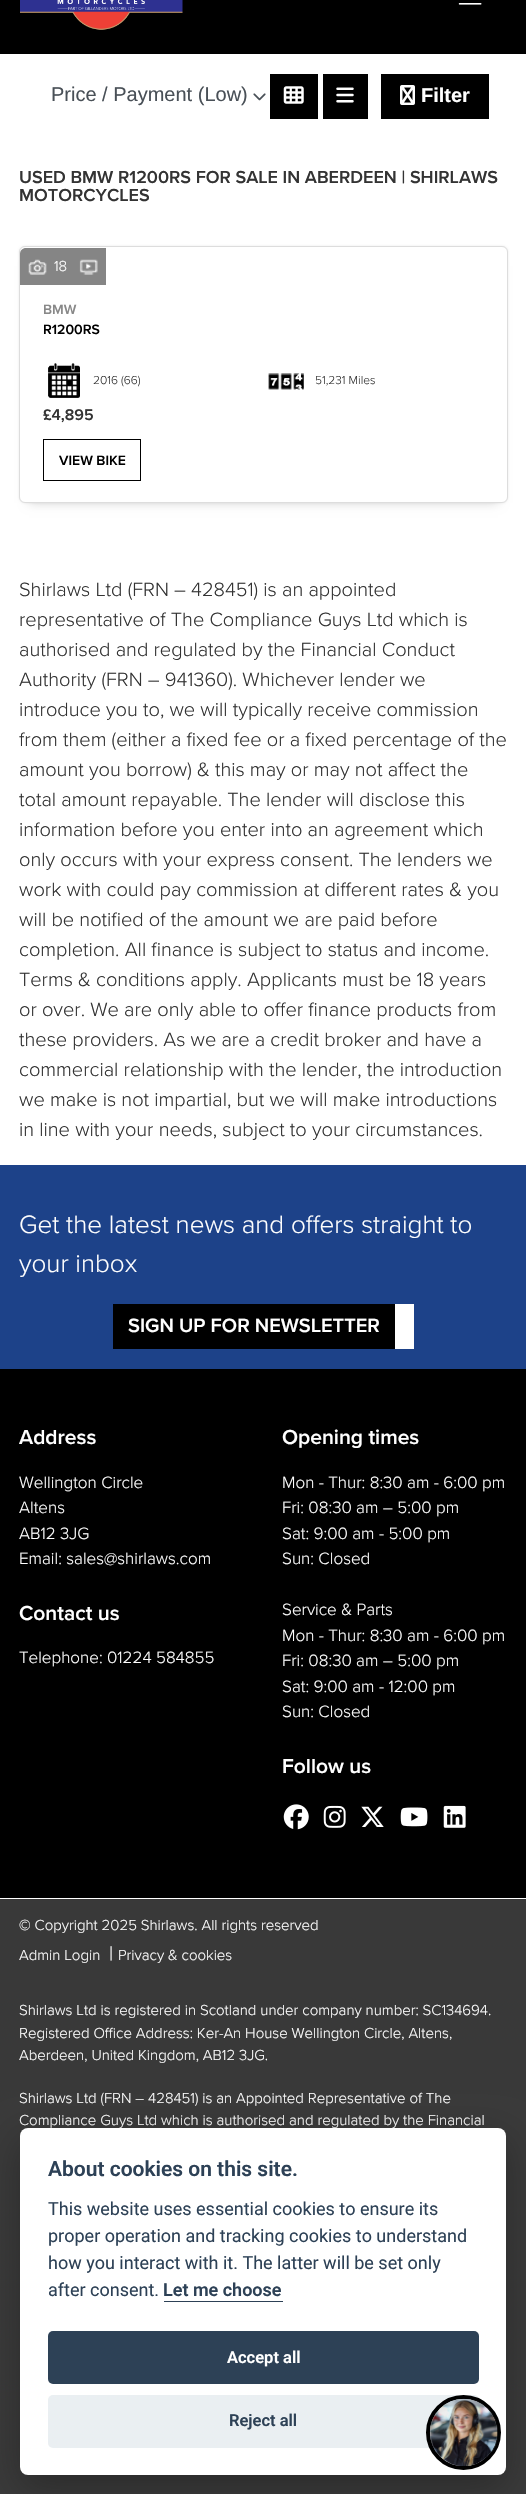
void draw(SkCanvas* canvas) {
	SkPaint paint;
	paint.setAntiAlias(true);
	auto svgPath = [&](const char* data, bool evenOdd = false) {
		SkPath result = *SkParsePath::FromSVGString(data);
		if (evenOdd) result.setFillType(SkPathFillType::kEvenOdd);
		return result;
	};
	canvas->clear(0xffffffff);
	paint.setColor(0xff000000);
	canvas->drawRect(SkRect::MakeXYWH(0, 0, 526, 54), paint);
	canvas->drawImageRect(SkImages::DeferredFromEncodedData(SkData::MakeFromFileName("img1.png")), SkRect::MakeXYWH(20, 0, 163, 30), SkSamplingOptions());
	canvas->drawImageRect(SkImages::DeferredFromEncodedData(SkData::MakeFromFileName("img2.png")), SkRect::MakeXYWH(458, 3, 24, 2), SkSamplingOptions());
	SkFont f1(fontMgr->matchFamilyStyle("Liberation Sans", SkFontStyle::Normal()), 20);
	f1.setSubpixel(true);
	paint.setColor(0xff495057);
	canvas->drawString("Price / Payment (Low)", 51, 101, f1, paint);
	canvas->drawImageRect(SkImages::DeferredFromEncodedData(SkData::MakeFromFileName("img3.png")), SkRect::MakeXYWH(253, 93, 13, 8), SkSamplingOptions());
	paint.setColor(0xff000000);
	canvas->drawRect(SkRect::MakeXYWH(270, 74, 48, 45), paint);
	canvas->drawImageRect(SkImages::DeferredFromEncodedData(SkData::MakeFromFileName("img4.png")), SkRect::MakeXYWH(283, 86, 21, 18), SkSamplingOptions());
	canvas->drawRect(SkRect::MakeXYWH(323, 74, 45, 45), paint);
	canvas->drawImageRect(SkImages::DeferredFromEncodedData(SkData::MakeFromFileName("img5.png")), SkRect::MakeXYWH(336, 87, 18, 16), SkSamplingOptions());
	canvas->drawRect(SkRect::MakeXYWH(381, 74, 108, 45), paint);
	canvas->drawImageRect(SkImages::DeferredFromEncodedData(SkData::MakeFromFileName("img6.png")), SkRect::MakeXYWH(400, 85, 15, 20), SkSamplingOptions());
	SkFont f2(fontMgr->matchFamilyStyle("Liberation Sans", SkFontStyle::Bold()), 20);
	f2.setSubpixel(true);
	paint.setColor(0xffffffff);
	canvas->drawString("Filter", 421, 102, f2, paint);
	SkFont f3(fontMgr->matchFamilyStyle("Proxima Nova", SkFontStyle(600, SkFontStyle::kNormal_Width, SkFontStyle::kUpright_Slant)), 18);
	f3.setSubpixel(true);
	paint.setColor(0xff333333);
	canvas->drawString("USED BMW R1200RS FOR SALE IN ABERDEEN | SHIRLAWS", 19, 183, f3, paint);
	canvas->drawString("MOTORCYCLES", 19, 201, f3, paint);
	paint.setColor(0x1a000000);
	paint.setMaskFilter(SkMaskFilter::MakeBlur(kNormal_SkBlurStyle, 1));
	canvas->drawRoundRect(SkRect::MakeXYWH(19, 246, 489, 257), 6, 6, paint);
	paint.setMaskFilter(nullptr);
	paint.setColor(0x29000000);
	paint.setMaskFilter(SkMaskFilter::MakeBlur(kNormal_SkBlurStyle, 5));
	canvas->drawRect(SkRect::MakeXYWH(29, 266, 469, 237), paint);
	paint.setMaskFilter(nullptr);
	paint.setColor(0xffffffff);
	canvas->drawRoundRect(SkRect::MakeXYWH(19.5, 246.5, 488, 256), 5.5, 5.5, paint);
	paint.setStroke(true);
	paint.setStrokeWidth(1);
	paint.setColor(0xffdddddd);
	canvas->drawRoundRect(SkRect::MakeXYWH(19.5, 246.5, 488, 256), 5.5, 5.5, paint);
	paint.setStroke(false);
	paint.setColor(0xff858585);
	canvas->drawPath(svgPath("M26 248H106V285H20V254C20 250.5 22.5 248 26 248Z"), paint);
	canvas->drawImageRect(SkImages::DeferredFromEncodedData(SkData::MakeFromFileName("img7.png")), SkRect::MakeXYWH(28, 259, 19, 16), SkSamplingOptions());
	SkFont f4(fontMgr->matchFamilyStyle("Proxima Nova", SkFontStyle(300, SkFontStyle::kNormal_Width, SkFontStyle::kUpright_Slant)), 15);
	f4.setSubpixel(true);
	paint.setColor(0xffffffff);
	canvas->drawString("18", 54, 271, f4, paint);
	canvas->drawImageRect(SkImages::DeferredFromEncodedData(SkData::MakeFromFileName("img8.png")), SkRect::MakeXYWH(79, 259, 19, 16), SkSamplingOptions());
	SkFont f5(fontMgr->matchFamilyStyle("Proxima Nova", SkFontStyle(600, SkFontStyle::kNormal_Width, SkFontStyle::kUpright_Slant)), 14);
	f5.setSubpixel(true);
	paint.setColor(0xff888888);
	canvas->drawString("BMW", 43, 314, f5, paint);
	paint.setColor(0xff000000);
	canvas->drawString("R1200RS", 43, 334, f5, paint);
	canvas->drawImageRect(SkImages::DeferredFromEncodedData(SkData::MakeFromFileName("img9.png")), SkRect::MakeXYWH(48, 363, 32, 35), SkSamplingOptions());
	SkFont f6(fontMgr->matchFamilyStyle("Proxima Nova", SkFontStyle(300, SkFontStyle::kNormal_Width, SkFontStyle::kUpright_Slant)), 12);
	f6.setSubpixel(true);
	paint.setColor(0xff333333);
	canvas->drawString("2016 (66)", 93, 384, f6, paint);
	canvas->drawImageRect(SkImages::DeferredFromEncodedData(SkData::MakeFromFileName("img10.png")), SkRect::MakeXYWH(268, 373, 36, 17), SkSamplingOptions());
	canvas->drawString("51,231 Miles", 315, 384, f6, paint);
	SkFont f7(fontMgr->matchFamilyStyle("Proxima Nova", SkFontStyle(600, SkFontStyle::kNormal_Width, SkFontStyle::kUpright_Slant)), 16);
	f7.setSubpixel(true);
	canvas->drawString("£4,895", 43, 420, f7, paint);
	paint.setStroke(true);
	paint.setColor(0xff000000);
	canvas->drawRect(SkRect::MakeXYWH(43.5, 439.5, 97, 41), paint);
	paint.setStroke(false);
	canvas->drawString("VIEW BIKE", 59, 465, f5, paint);
	SkFont f8(fontMgr->matchFamilyStyle("Proxima Nova", SkFontStyle(300, SkFontStyle::kNormal_Width, SkFontStyle::kUpright_Slant)), 20);
	f8.setSubpixel(true);
	paint.setColor(0xff333333);
	canvas->drawString("Shirlaws Ltd (FRN – 428451) is an appointed", 19, 596, f8, paint);
	canvas->drawString("representative of The Compliance Guys Ltd which is", 19, 626, f8, paint);
	canvas->drawString("authorised and regulated by the Financial Conduct", 19, 656, f8, paint);
	canvas->drawString("Authority (FRN – 941360). Whichever lender we", 19, 686, f8, paint);
	canvas->drawString("introduce you to, we will typically receive commission", 19, 716, f8, paint);
	canvas->drawString("from them (either a fixed fee or a fixed percentage of the", 19, 746, f8, paint);
	canvas->drawString("amount you borrow) & this may or may not affect the", 19, 776, f8, paint);
	canvas->drawString("total amount repayable. The lender will disclose this", 19, 806, f8, paint);
	canvas->drawString("information before you enter into an agreement which", 19, 836, f8, paint);
	canvas->drawString("only occurs with your express consent. The lenders we", 19, 866, f8, paint);
	canvas->drawString("work with could pay commission at different rates & you", 19, 896, f8, paint);
	canvas->drawString("will be notified of the amount we are paid before", 19, 926, f8, paint);
	canvas->drawString("completion. All finance is subject to status and income.", 19, 956, f8, paint);
	canvas->drawString("Terms & conditions apply. Applicants must be 18 years", 19, 986, f8, paint);
	canvas->drawString("or over. We are only able to offer finance products from", 19, 1016, f8, paint);
	canvas->drawString("these providers. As we are a credit broker and have a", 19, 1046, f8, paint);
	canvas->drawString("commercial relationship with the lender, the introduction", 19, 1076, f8, paint);
	canvas->drawString("we make is not impartial, but we will make introductions", 19, 1106, f8, paint);
	canvas->drawString("in line with your needs, subject to your circumstances.", 19, 1136, f8, paint);
	paint.setColor(0xff000000);
	canvas->drawRect(SkRect::MakeXYWH(0, 1369, 526, 529), paint);
	paint.setColor(0xff1d4289);
	canvas->drawRect(SkRect::MakeXYWH(0, 1165, 526, 204), paint);
	SkFont f9(fontMgr->matchFamilyStyle("Proxima Nova", SkFontStyle(300, SkFontStyle::kNormal_Width, SkFontStyle::kUpright_Slant)), 26);
	f9.setSubpixel(true);
	paint.setColor(0xffffffff);
	canvas->drawString("Get the latest news and offers straight to", 19, 1233, f9, paint);
	canvas->drawString("your inbox", 19, 1272, f9, paint);
	paint.setColor(0xff000000);
	canvas->drawRect(SkRect::MakeXYWH(113, 1304, 282, 45), paint);
	paint.setColor(0xffffffff);
	canvas->drawRect(SkRect::MakeXYWH(395, 1304, 19, 45), paint);
	SkFont f10(fontMgr->matchFamilyStyle("Proxima Nova", SkFontStyle(600, SkFontStyle::kNormal_Width, SkFontStyle::kUpright_Slant)), 20);
	f10.setSubpixel(true);
	canvas->drawString("SIGN UP FOR NEWSLETTER", 128, 1332, f10, paint);
	SkFont f11(fontMgr->matchFamilyStyle("Proxima Nova", SkFontStyle(600, SkFontStyle::kNormal_Width, SkFontStyle::kUpright_Slant)), 21);
	f11.setSubpixel(true);
	canvas->drawString("Address", 19, 1444, f11, paint);
	SkFont f12(fontMgr->matchFamilyStyle("Proxima Nova", SkFontStyle(300, SkFontStyle::kNormal_Width, SkFontStyle::kUpright_Slant)), 17);
	f12.setSubpixel(true);
	canvas->drawString("Wellington Circle", 19, 1488, f12, paint);
	canvas->drawString("Altens", 19, 1513, f12, paint);
	canvas->drawString("AB12 3JG", 19, 1539, f12, paint);
	canvas->drawString("Email: sales@shirlaws.com", 19, 1564, f12, paint);
	canvas->drawString("Contact us", 19, 1620, f11, paint);
	canvas->drawString("Telephone: 01224 584855", 19, 1663, f12, paint);
	canvas->drawString("Opening times", 282, 1444, f11, paint);
	canvas->drawString("Mon - Thur: 8:30 am - 6:00 pm", 282, 1488, f12, paint);
	canvas->drawString("Fri: 08:30 am – 5:00 pm", 282, 1513, f12, paint);
	canvas->drawString("Sat: 9:00 am - 5:00 pm", 282, 1539, f12, paint);
	canvas->drawString("Sun: Closed", 282, 1564, f12, paint);
	canvas->drawString("Service & Parts", 282, 1615, f12, paint);
	canvas->drawString("Mon - Thur: 8:30 am - 6:00 pm", 282, 1641, f12, paint);
	canvas->drawString("Fri: 08:30 am – 5:00 pm", 282, 1666, f12, paint);
	canvas->drawString("Sat: 9:00 am - 12:00 pm", 282, 1692, f12, paint);
	canvas->drawString("Sun: Closed", 282, 1717, f12, paint);
	canvas->drawString("Follow us", 282, 1773, f11, paint);
	canvas->drawImageRect(SkImages::DeferredFromEncodedData(SkData::MakeFromFileName("img11.png")), SkRect::MakeXYWH(283, 1804, 26, 26), SkSamplingOptions());
	canvas->drawImageRect(SkImages::DeferredFromEncodedData(SkData::MakeFromFileName("img12.png")), SkRect::MakeXYWH(323, 1805, 23, 23), SkSamplingOptions());
	canvas->drawImageRect(SkImages::DeferredFromEncodedData(SkData::MakeFromFileName("img13.png")), SkRect::MakeXYWH(361, 1806, 23, 21), SkSamplingOptions());
	canvas->drawImageRect(SkImages::DeferredFromEncodedData(SkData::MakeFromFileName("img14.png")), SkRect::MakeXYWH(400, 1807, 28, 20), SkSamplingOptions());
	canvas->drawImageRect(SkImages::DeferredFromEncodedData(SkData::MakeFromFileName("img15.png")), SkRect::MakeXYWH(443, 1805, 23, 23), SkSamplingOptions());
	paint.setColor(0xff393939);
	canvas->drawRect(SkRect::MakeXYWH(0, 1899, 526, 595), paint);
	paint.setColor(0xffffffff);
	canvas->drawString("© Copyright 2025 Shirlaws. All rights reserved", 19, 1930, f4, paint);
	canvas->drawString("Admin Login", 19, 1960, f4, paint);
	canvas->drawString("|", 109, 1960, f8, paint);
	canvas->drawString("Privacy & cookies", 118, 1960, f4, paint);
	canvas->drawString("Shirlaws Ltd is registered in Scotland under company number: SC134694.", 19, 2015, f4, paint);
	canvas->drawString("Registered Office Address: Ker-An House Wellington Circle, Altens,", 19, 2038, f4, paint);
	canvas->drawString("Aberdeen, United Kingdom, AB12 3JG.", 19, 2060, f4, paint);
	canvas->drawString("Shirlaws Ltd (FRN – 428451) is an Appointed Representative of The", 19, 2103, f4, paint);
	canvas->drawString("Compliance Guys Ltd which is authorised and regulated by the Financial", 19, 2125, f4, paint);
	paint.setColor(0x47020203);
	paint.setMaskFilter(SkMaskFilter::MakeBlur(kNormal_SkBlurStyle, 19));
	canvas->drawRoundRect(SkRect::MakeXYWH(20, 2140, 486, 348), 8, 8, paint);
	paint.setMaskFilter(nullptr);
	paint.setColor(0xffffffff);
	canvas->drawRoundRect(SkRect::MakeXYWH(20, 2128, 486, 347), 8, 8, paint);
	SkFont f13(fontMgr->matchFamilyStyle("Roboto", SkFontStyle(600, SkFontStyle::kNormal_Width, SkFontStyle::kUpright_Slant)), 21);
	f13.setSubpixel(true);
	paint.setColor(0xff2d4156);
	canvas->drawString("About cookies on this site.", 48, 2176, f13, paint);
	SkFont f14(fontMgr->matchFamilyStyle("Roboto", SkFontStyle::Normal()), 18);
	f14.setSubpixel(true);
	canvas->drawString("This website uses essential cookies to ensure its", 48, 2215, f14, paint);
	canvas->drawString("proper operation and tracking cookies to understand", 48, 2242, f14, paint);
	canvas->drawString("how you interact with it. The latter will be set only", 48, 2269, f14, paint);
	canvas->drawString("after consent.", 48, 2296, f14, paint);
	SkFont f15(fontMgr->matchFamilyStyle("Roboto", SkFontStyle(600, SkFontStyle::kNormal_Width, SkFontStyle::kUpright_Slant)), 18);
	f15.setSubpixel(true);
	canvas->drawString("Let me choose", 163, 2296, f15, paint);
	canvas->drawRect(SkRect::MakeXYWH(164, 2301, 119, 1), paint);
	canvas->drawRoundRect(SkRect::MakeXYWH(48, 2331, 431, 53), 5, 5, paint);
	SkFont f16(fontMgr->matchFamilyStyle("Roboto", SkFontStyle(600, SkFontStyle::kNormal_Width, SkFontStyle::kUpright_Slant)), 16.5);
	f16.setSubpixel(true);
	paint.setColor(0xffffffff);
	canvas->drawString("Accept all", 227, 2363, f16, paint);
	paint.setColor(0xffeaeff2);
	canvas->drawRoundRect(SkRect::MakeXYWH(48, 2395, 431, 53), 5, 5, paint);
	paint.setColor(0xff2d4156);
	canvas->drawString("Reject all", 229, 2426, f16, paint);
	paint.setStroke(true);
	paint.setStrokeWidth(4);
	paint.setColor(0xff000000);
	canvas->drawCircle(463.5, 2432.5, 35.5, paint);
	canvas->drawImageRect(SkImages::DeferredFromEncodedData(SkData::MakeFromFileName("img16.png")), SkRect::MakeXYWH(429, 2398, 69, 68), SkSamplingOptions());
}
